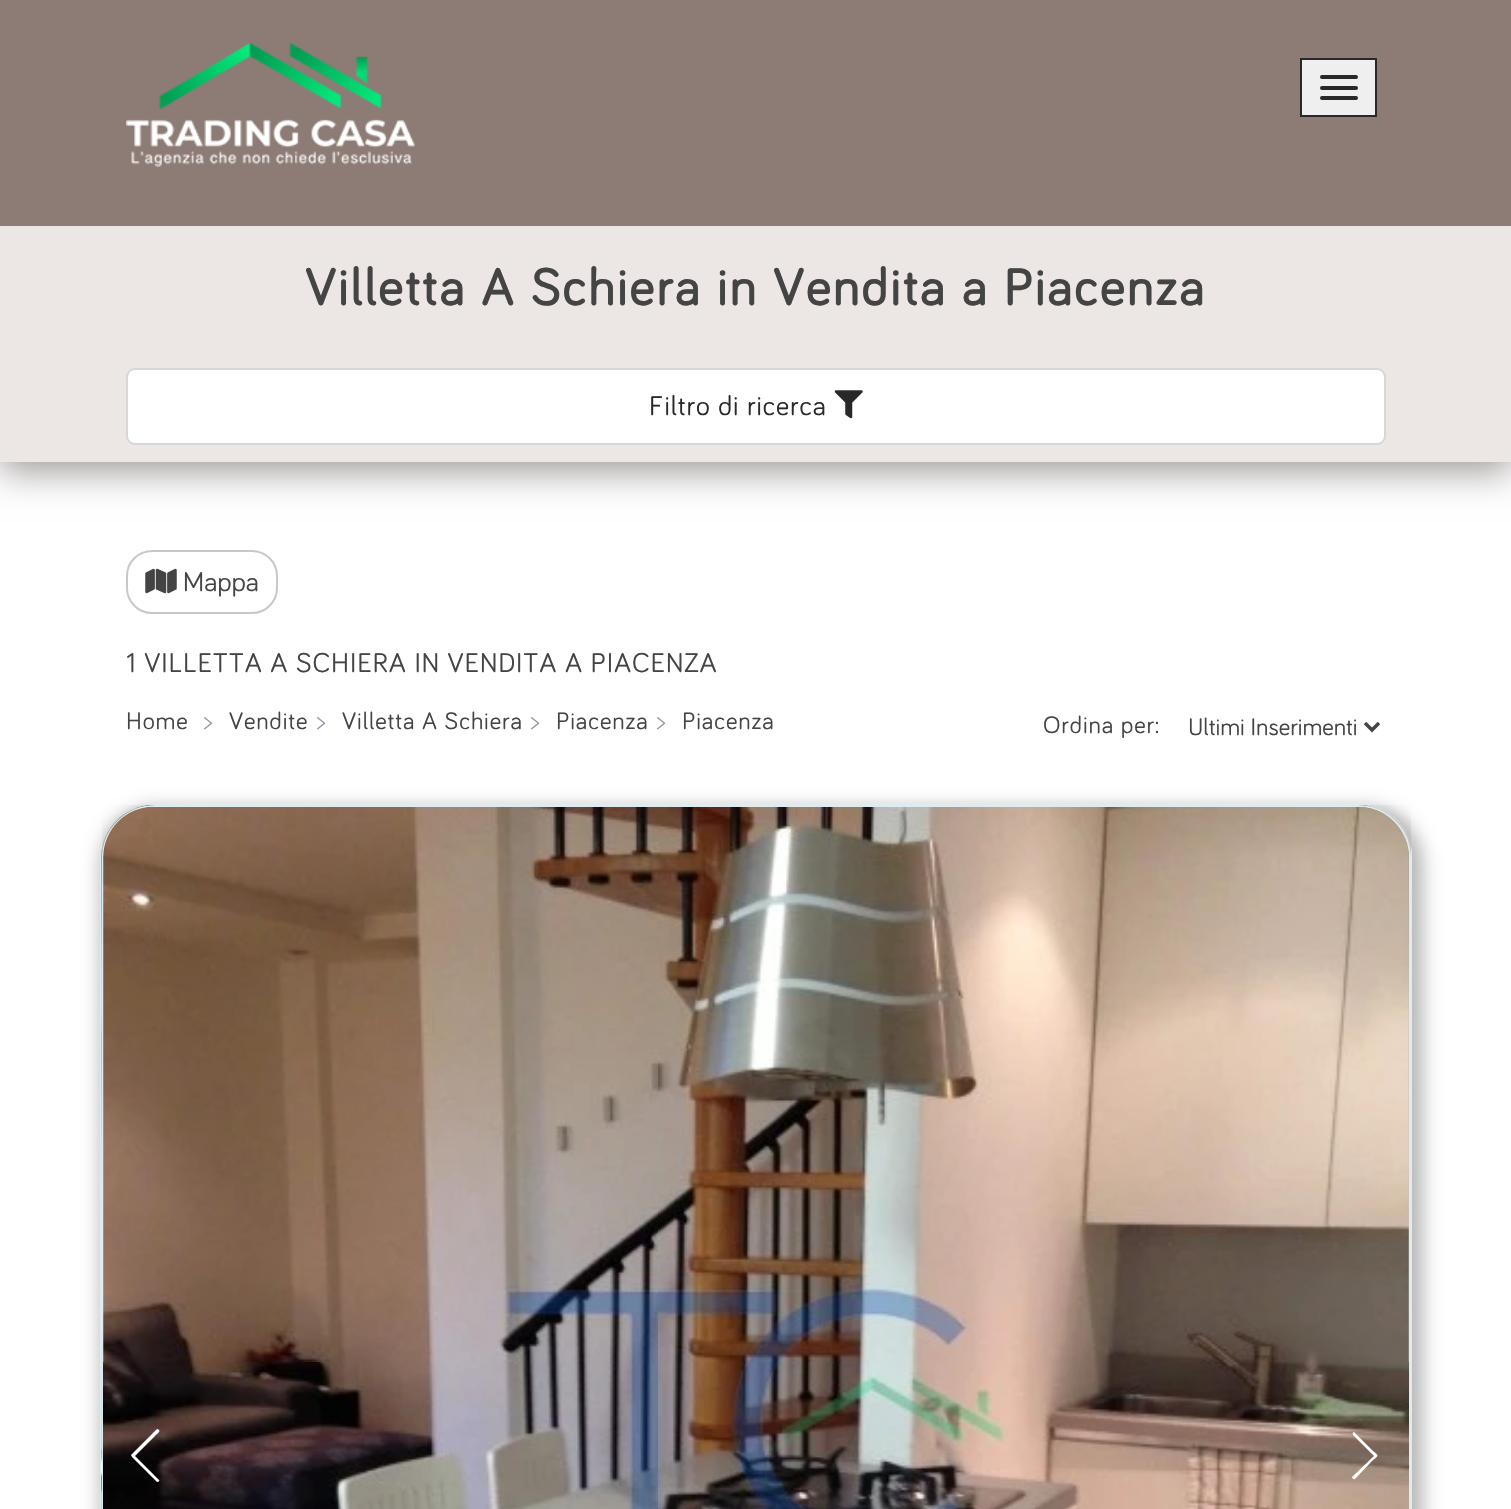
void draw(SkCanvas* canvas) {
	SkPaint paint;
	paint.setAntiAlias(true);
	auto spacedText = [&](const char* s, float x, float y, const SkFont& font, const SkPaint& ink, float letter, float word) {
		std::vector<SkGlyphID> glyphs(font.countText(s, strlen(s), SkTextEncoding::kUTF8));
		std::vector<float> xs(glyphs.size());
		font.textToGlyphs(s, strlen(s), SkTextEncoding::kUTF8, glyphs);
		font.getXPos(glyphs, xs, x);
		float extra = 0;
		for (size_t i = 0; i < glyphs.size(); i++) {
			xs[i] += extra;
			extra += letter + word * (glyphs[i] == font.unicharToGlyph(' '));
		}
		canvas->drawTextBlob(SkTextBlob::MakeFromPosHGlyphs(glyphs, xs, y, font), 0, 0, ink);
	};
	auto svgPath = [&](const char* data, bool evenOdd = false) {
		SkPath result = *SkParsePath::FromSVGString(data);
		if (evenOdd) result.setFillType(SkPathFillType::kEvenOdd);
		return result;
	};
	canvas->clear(0xffffffff);
	paint.setColor(0xff9d9796);
	paint.setMaskFilter(SkMaskFilter::MakeBlur(kNormal_SkBlurStyle, 17.5));
	canvas->drawRect(SkRect::MakeXYWH(0, 224, 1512, 247), paint);
	paint.setMaskFilter(nullptr);
	paint.setColor(0xff8d7b75);
	canvas->drawRect(SkRect::MakeXYWH(0, 0, 1511, 226), paint);
	canvas->drawImageRect(SkImages::DeferredFromEncodedData(SkData::MakeFromFileName("img1.png")), SkRect::MakeXYWH(126, 42, 289, 125), SkSamplingOptions());
	paint.setColor(0xffefefef);
	canvas->drawRect(SkRect::MakeXYWH(1301, 59, 75, 57), paint);
	paint.setStroke(true);
	paint.setStrokeWidth(2);
	paint.setColor(0xff282828);
	canvas->drawRect(SkRect::MakeXYWH(1301, 59, 75, 57), paint);
	paint.setStroke(false);
	canvas->drawRoundRect(SkRect::MakeXYWH(1320, 75, 38, 4), 2, 2, paint);
	canvas->drawRoundRect(SkRect::MakeXYWH(1320, 86, 38, 4), 2, 2, paint);
	canvas->drawRoundRect(SkRect::MakeXYWH(1320, 96, 38, 4), 2, 2, paint);
	paint.setColor(0xffece7e4);
	canvas->drawRect(SkRect::MakeXYWH(0, 226, 1511, 236), paint);
	SkFont f1(fontMgr->matchFamilyStyle("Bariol", SkFontStyle::Bold()), 52.5);
	f1.setSubpixel(true);
	paint.setColor(0xff444444);
	spacedText("Villetta A Schiera in Vendita a Piacenza", 305, 305, f1, paint, 2.45, 0);
	paint.setColor(0xffffffff);
	canvas->drawRoundRect(SkRect::MakeXYWH(127, 369, 1258, 75), 8, 8, paint);
	paint.setStroke(true);
	paint.setColor(0xffd7d7d7);
	canvas->drawRoundRect(SkRect::MakeXYWH(127, 369, 1258, 75), 8, 8, paint);
	SkFont f2(fontMgr->matchFamilyStyle("Bariol", SkFontStyle::Normal()), 28);
	f2.setSubpixel(true);
	paint.setStroke(false);
	paint.setColor(0xff282828);
	spacedText("Filtro di ricerca", 649, 415, f2, paint, 0.9, 0);
	canvas->drawImageRect(SkImages::DeferredFromEncodedData(SkData::MakeFromFileName("img2.png")), SkRect::MakeXYWH(834, 390, 29, 29), SkSamplingOptions());
	paint.setStroke(true);
	paint.setColor(0xffc8c8c8);
	canvas->drawRoundRect(SkRect::MakeXYWH(127, 551, 150, 62), 25, 25, paint);
	canvas->drawImageRect(SkImages::DeferredFromEncodedData(SkData::MakeFromFileName("img3.png")), SkRect::MakeXYWH(145, 568, 32, 26), SkSamplingOptions());
	paint.setStroke(false);
	paint.setColor(0xff444444);
	canvas->drawString("Mappa", 183, 591, f2, paint);
	spacedText("1 VILLETTA A SCHIERA IN VENDITA A PIACENZA", 126, 672, f2, paint, 0.9, 0);
	SkFont f3(fontMgr->matchFamilyStyle("Bariol", SkFontStyle::Normal()), 24.5);
	f3.setSubpixel(true);
	spacedText("Home", 126, 729, f3, paint, 0.9, 0);
	paint.setColor(0xff8e99a3);
	spacedText(">", 204, 729, f3, paint, 0.9, 0);
	paint.setColor(0xff444444);
	spacedText("Vendite", 229, 729, f3, paint, 0.9, 0);
	paint.setColor(0xff8e99a3);
	spacedText(">", 317, 729, f3, paint, 0.9, 0);
	paint.setColor(0xff444444);
	spacedText("Villetta A Schiera", 342, 729, f3, paint, 0.9, 0);
	paint.setColor(0xff8e99a3);
	spacedText(">", 531, 729, f3, paint, 0.9, 0);
	paint.setColor(0xff444444);
	spacedText("Piacenza", 556, 729, f3, paint, 0.9, 0);
	paint.setColor(0xff8e99a3);
	spacedText(">", 657, 729, f3, paint, 0.9, 0);
	paint.setColor(0xff444444);
	spacedText("Piacenza", 682, 729, f3, paint, 0.9, 0);
	spacedText("Ordina per:", 1043, 733, f3, paint, 0.9, 0);
	paint.setStroke(true);
	paint.setStrokeWidth(3.5);
	canvas->drawPath(svgPath("M1365 723L1372 730L1379 723"), paint);
	paint.setStroke(false);
	canvas->drawString("Ultimi Inserimenti", 1188, 735, f3, paint);
	paint.setColor(0xffb7b7b7);
	paint.setMaskFilter(SkMaskFilter::MakeBlur(kNormal_SkBlurStyle, 9));
	canvas->drawRoundRect(SkRect::MakeXYWH(100, 807, 1323, 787), 58, 58, paint);
	paint.setMaskFilter(nullptr);
	paint.setColor(0xffffffff);
	canvas->drawPath(svgPath("M153 804H1359C1387.5 804 1411 827.5 1411 856V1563H101V856C101 827.5 124.5 804 153 804Z"), paint);
	paint.setStroke(true);
	paint.setStrokeWidth(2);
	paint.setColor(0xffdfebee);
	canvas->drawPath(svgPath("M153 804H1359C1387.5 804 1411 827.5 1411 856V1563H101V856C101 827.5 124.5 804 153 804Z"), paint);
	canvas->save();
	canvas->clipRect(SkRect::MakeXYWH(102, 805, 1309, 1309));
	paint.setStroke(false);
	paint.setColor(0xffb7b7b7);
	paint.setMaskFilter(SkMaskFilter::MakeBlur(kNormal_SkBlurStyle, 9));
	canvas->drawRoundRect(SkRect::MakeXYWH(102, 809, 1319, 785), 58, 58, paint);
	paint.setMaskFilter(nullptr);
	canvas->restore();
	canvas->drawImageRect(SkImages::DeferredFromEncodedData(SkData::MakeFromFileName("img4.png")), SkRect::MakeXYWH(101, 805, 1309, 704), SkSamplingOptions());
	paint.setStroke(true);
	paint.setColor(0xffdfebee);
	canvas->drawPath(svgPath("M155 806H1358C1386.5 806 1410 829.5 1410 858V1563H103V858C103 829.5 126.5 806 155 806Z"), paint);
	canvas->drawImageRect(SkImages::DeferredFromEncodedData(SkData::MakeFromFileName("img5.png")), SkRect::MakeXYWH(103, 807, 1306, 702), SkSamplingOptions());
	paint.setStroke(false);
	paint.setColor(0xffffffff);
	canvas->drawPath(svgPath("M135 1456L159 1480C160 1481 158 1482 157 1482L132 1457L131 1455L157 1429C158 1429 158 1429 159 1430C161 1432 155 1435 155 1436Z"), paint);
	canvas->drawPath(svgPath("M1355 1479C1354 1480 1352 1478 1352 1477L1374 1456L1353 1435C1352 1434 1353 1432 1354 1432L1373 1451C1379 1456 1379 1455 1373 1460Z"), paint);
}
